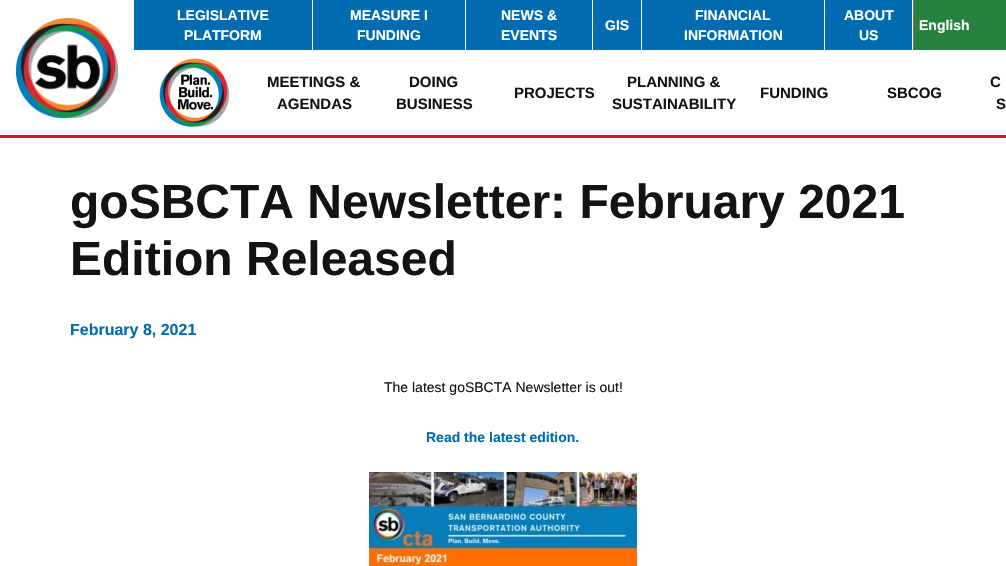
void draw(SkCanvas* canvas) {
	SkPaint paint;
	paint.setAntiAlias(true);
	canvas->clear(0xffffffff);
	paint.setColor(0xffd0192e);
	canvas->drawRect(SkRect::MakeXYWH(0, 135, 1006, 3), paint);
	canvas->drawImageRect(SkImages::DeferredFromEncodedData(SkData::MakeFromFileName("img1.png")), SkRect::MakeXYWH(16, 18, 102, 100), SkSamplingOptions());
	paint.setColor(0xff006bae);
	canvas->drawRect(SkRect::MakeXYWH(134, 0, 778, 50), paint);
	paint.setColor(0xffffffff);
	canvas->drawRect(SkRect::MakeXYWH(312, 0, 1, 50), paint);
	SkFont f1(fontMgr->matchFamilyStyle("Liberation Sans", SkFontStyle::Bold()), 14);
	f1.setSubpixel(true);
	canvas->drawString("LEGISLATIVE", 177, 20, f1, paint);
	canvas->drawString("PLATFORM", 184, 40, f1, paint);
	canvas->drawRect(SkRect::MakeXYWH(465, 0, 1, 50), paint);
	canvas->drawString("MEASURE I", 350, 20, f1, paint);
	canvas->drawString("FUNDING", 357, 40, f1, paint);
	canvas->drawRect(SkRect::MakeXYWH(592, 0, 1, 50), paint);
	canvas->drawString("NEWS &", 501, 20, f1, paint);
	canvas->drawString("EVENTS", 501, 40, f1, paint);
	canvas->drawRect(SkRect::MakeXYWH(641, 0, 1, 50), paint);
	canvas->drawString("GIS", 605, 30, f1, paint);
	canvas->drawRect(SkRect::MakeXYWH(824, 0, 1, 50), paint);
	canvas->drawString("FINANCIAL", 695, 20, f1, paint);
	canvas->drawString("INFORMATION", 684, 40, f1, paint);
	canvas->drawString("ABOUT", 844, 20, f1, paint);
	canvas->drawString("US", 859, 40, f1, paint);
	paint.setColor(0xff27823f);
	canvas->drawRect(SkRect::MakeXYWH(914, 0, 92, 50), paint);
	paint.setColor(0xff767676);
	canvas->drawRect(SkRect::MakeXYWH(913, 0, 1, 50), paint);
	paint.setColor(0xffffffff);
	canvas->drawString("English", 919, 30, f1, paint);
	canvas->drawImageRect(SkImages::DeferredFromEncodedData(SkData::MakeFromFileName("img2.png")), SkRect::MakeXYWH(159, 58, 71, 69), SkSamplingOptions());
	SkFont f2(fontMgr->matchFamilyStyle("Liberation Sans", SkFontStyle::Bold()), 15);
	f2.setSubpixel(true);
	paint.setColor(0xff131215);
	canvas->drawString("MEETINGS &", 267, 87, f2, paint);
	canvas->drawString("AGENDAS", 277, 109, f2, paint);
	canvas->drawString("DOING", 409, 87, f2, paint);
	canvas->drawString("BUSINESS", 396, 109, f2, paint);
	canvas->drawString("PROJECTS", 514, 98, f2, paint);
	canvas->drawString("PLANNING &", 627, 87, f2, paint);
	canvas->drawString("SUSTAINABILITY", 612, 109, f2, paint);
	canvas->drawString("FUNDING", 760, 98, f2, paint);
	canvas->drawString("SBCOG", 887, 98, f2, paint);
	canvas->drawString("C", 990, 87, f2, paint);
	canvas->drawString("S", 996, 109, f2, paint);
	SkFont f3(fontMgr->matchFamilyStyle("Liberation Sans", SkFontStyle::Bold()), 48);
	f3.setSubpixel(true);
	canvas->drawString("goSBCTA Newsletter: February 2021", 70, 218, f3, paint);
	canvas->drawString("Edition Released", 70, 275, f3, paint);
	SkFont f4(fontMgr->matchFamilyStyle("Liberation Sans", SkFontStyle::Bold()), 16);
	f4.setSubpixel(true);
	paint.setColor(0xff006bae);
	canvas->drawString("February 8, 2021", 70, 335, f4, paint);
	SkFont f5(fontMgr->matchFamilyStyle("Liberation Sans", SkFontStyle::Normal()), 14);
	f5.setSubpixel(true);
	paint.setColor(0xff131215);
	canvas->drawString("The latest goSBCTA Newsletter is out!", 384, 392, f5, paint);
	paint.setColor(0xff006bae);
	canvas->drawString("Read the latest edition.", 426, 442, f1, paint);
	canvas->drawImageRect(SkImages::DeferredFromEncodedData(SkData::MakeFromFileName("img3.png")), SkRect::MakeXYWH(369, 472, 268, 94), SkSamplingOptions());
}
